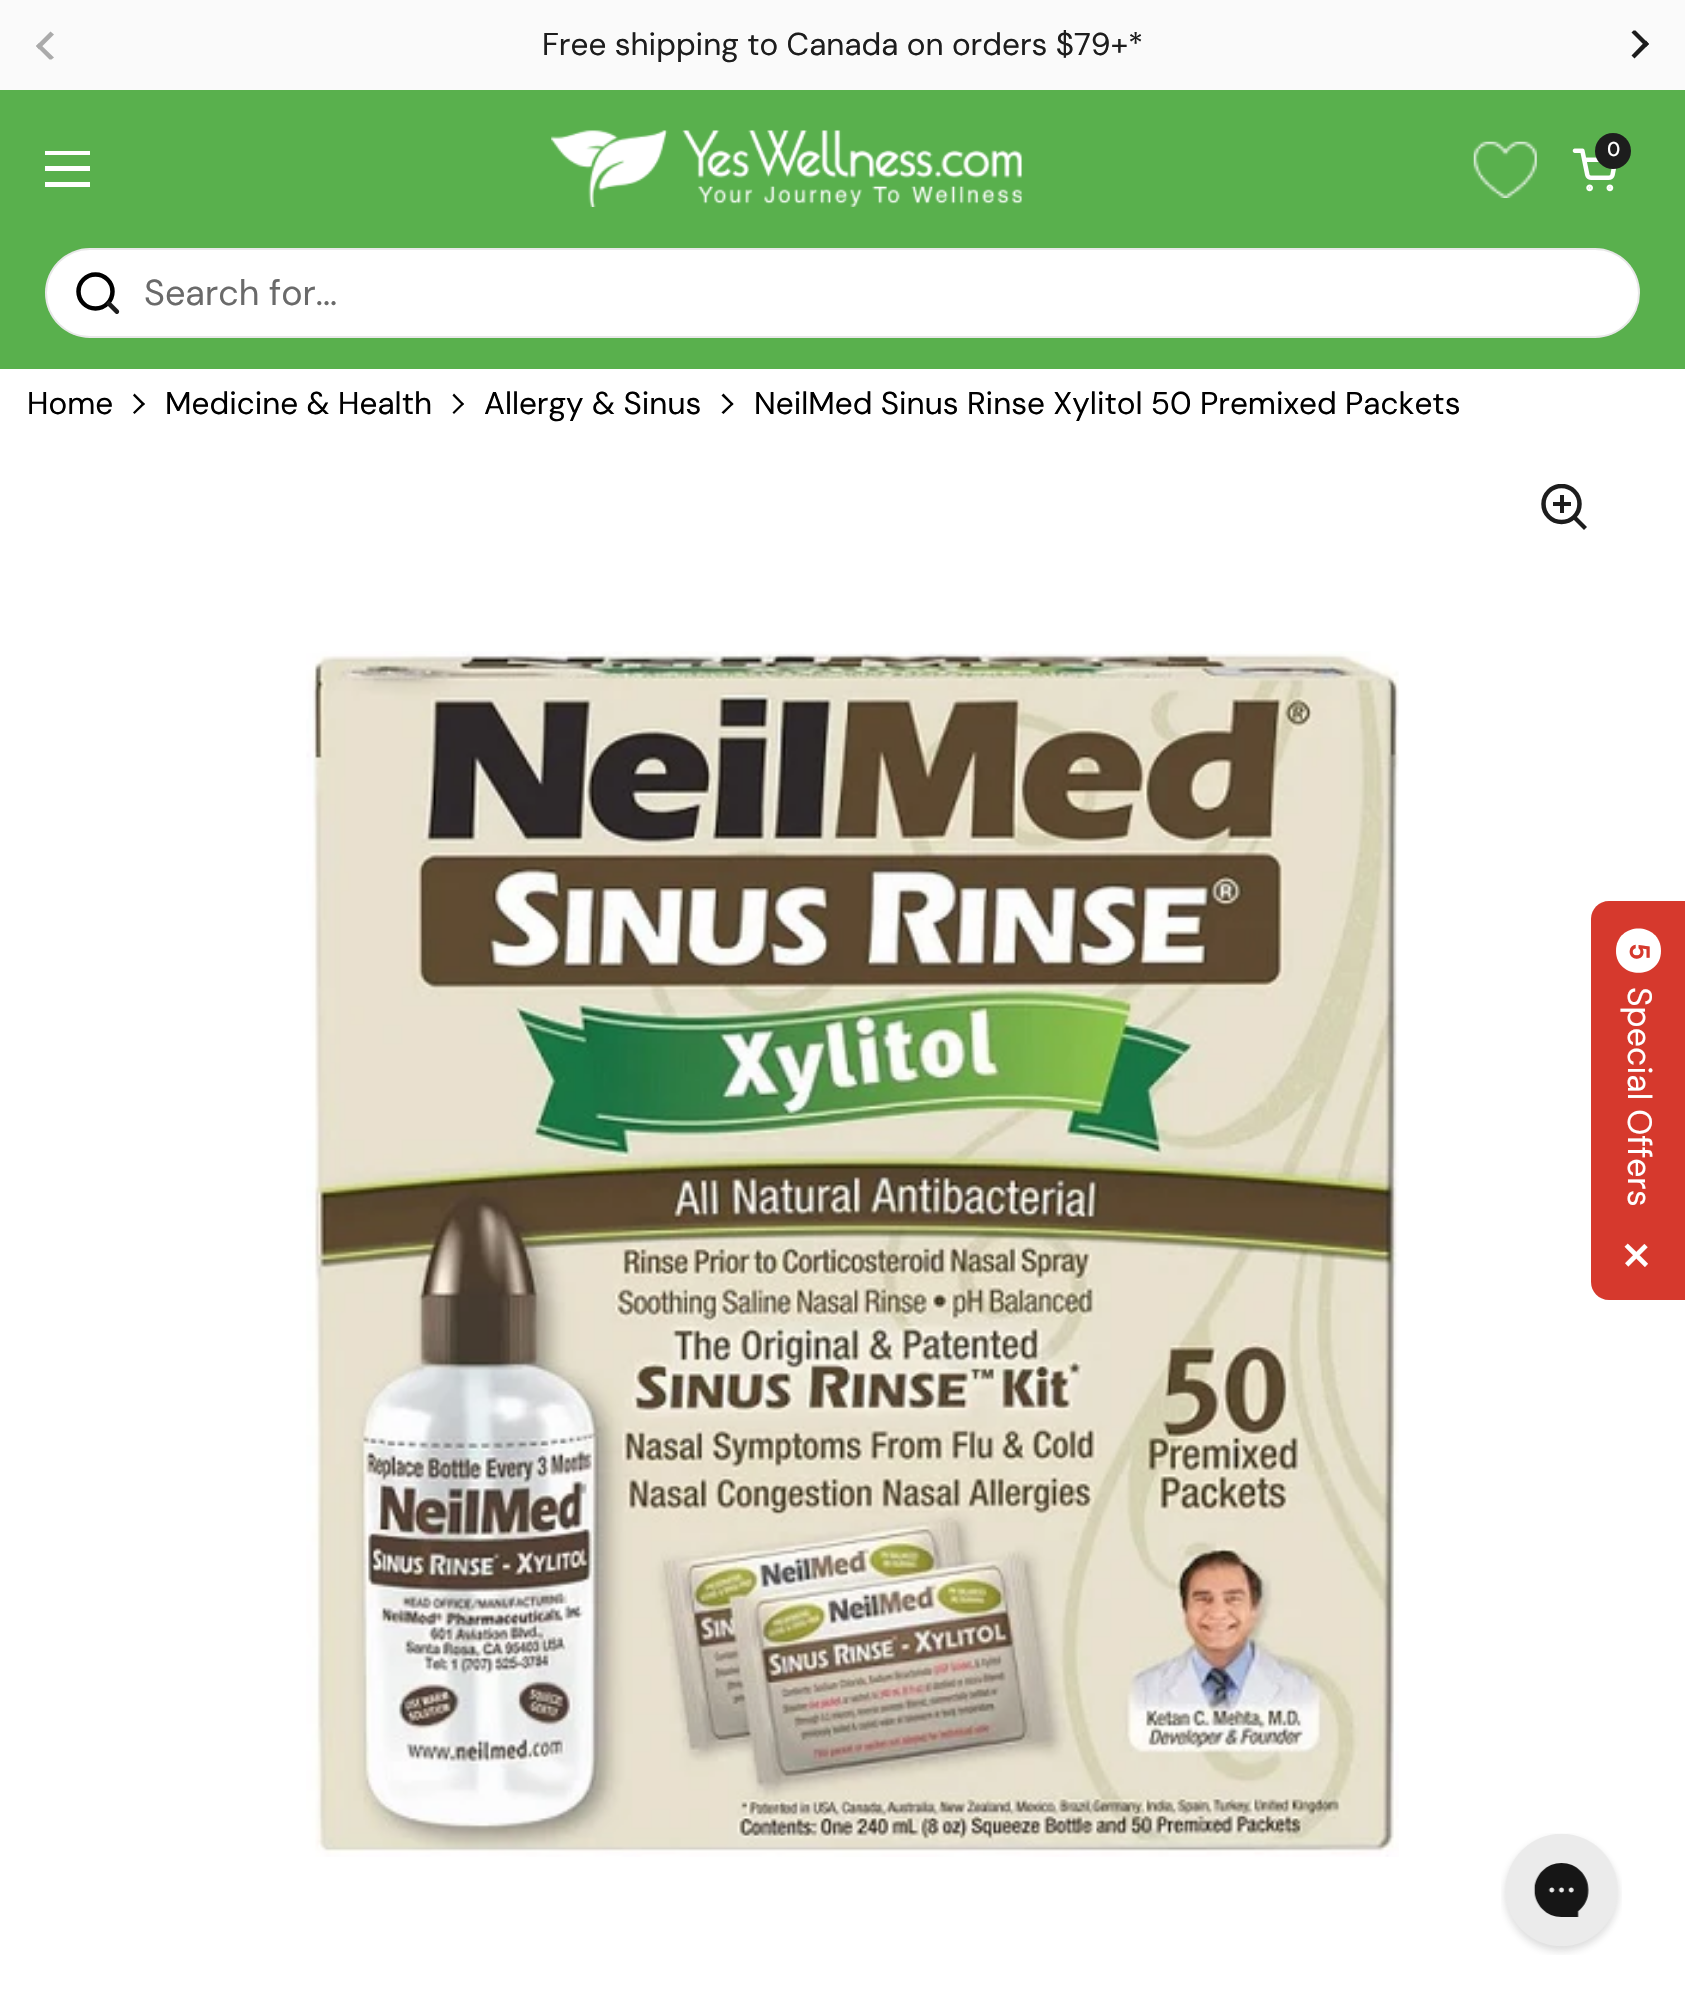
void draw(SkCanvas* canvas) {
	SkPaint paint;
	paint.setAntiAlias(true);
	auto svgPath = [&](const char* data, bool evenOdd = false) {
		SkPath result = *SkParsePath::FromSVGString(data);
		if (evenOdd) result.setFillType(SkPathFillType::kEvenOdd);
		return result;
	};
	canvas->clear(0xffffffff);
	paint.setColor(0xfffafafa);
	canvas->drawRect(SkRect::MakeXYWH(0, 0, 1685, 90), paint);
	paint.setColor(0xffaaaaaa);
	canvas->drawPath(svgPath("M54 34.5L39 49.5L36 46L50.5 31.5Z"), paint);
	canvas->drawPath(svgPath("M49.5 59.5L36 46L39 43L54 57.5L51.5 59.5Z"), paint);
	SkFont f1(fontMgr->matchFamilyStyle("DM Sans", SkFontStyle::Normal()), 31.5);
	f1.setSubpixel(true);
	paint.setColor(0xff1d1d1d);
	canvas->drawString("Free shipping to Canada on orders $79+*", 542, 55, f1, paint);
	canvas->drawPath(svgPath("M1631.5 55.5L1646 40.5L1649 44L1634.5 58.5Z"), paint);
	canvas->drawPath(svgPath("M1635.5 30.5L1649 44L1646 47L1631.5 32.5L1633.5 30.5Z"), paint);
	paint.setColor(0xff59b04d);
	canvas->drawRect(SkRect::MakeXYWH(0, 90, 1685, 279), paint);
	canvas->drawImageRect(SkImages::DeferredFromEncodedData(SkData::MakeFromFileName("img1.png")), SkRect::MakeXYWH(551, 130, 471, 77), SkSamplingOptions());
	canvas->drawImageRect(SkImages::DeferredFromEncodedData(SkData::MakeFromFileName("img2.png")), SkRect::MakeXYWH(1473, 141, 64, 57), SkSamplingOptions());
	canvas->drawImageRect(SkImages::DeferredFromEncodedData(SkData::MakeFromFileName("img3.png")), SkRect::MakeXYWH(1572, 148, 45, 44), SkSamplingOptions());
	paint.setColor(0xff1d1d1d);
	canvas->drawCircle(1613, 151, 18, paint);
	SkFont f2(fontMgr->matchFamilyStyle("DM Sans", SkFontStyle(500, SkFontStyle::kNormal_Width, SkFontStyle::kUpright_Slant)), 20);
	f2.setSubpixel(true);
	paint.setColor(0xffffffff);
	canvas->drawString("0", 1607, 156, f2, paint);
	canvas->drawRect(SkRect::MakeXYWH(45, 151, 45, 4), paint);
	canvas->drawRect(SkRect::MakeXYWH(45, 166, 45, 5), paint);
	canvas->drawRect(SkRect::MakeXYWH(45, 182, 45, 5), paint);
	canvas->drawRoundRect(SkRect::MakeXYWH(45, 248, 1595, 90), 45, 45, paint);
	paint.setStroke(true);
	paint.setStrokeWidth(2);
	paint.setColor(0x1a1d1d1d);
	canvas->drawRoundRect(SkRect::MakeXYWH(46, 249, 1593, 88), 44, 44, paint);
	paint.setStrokeWidth(4.5);
	paint.setColor(0xff000000);
	canvas->drawCircle(95.5, 291.5, 17, paint);
	paint.setStroke(false);
	paint.setColor(0xff1d1d1d);
	canvas->drawPath(svgPath("M110.5 302L109 300.5L106 304L107.5 305.5ZM115.5 313.5C117.5 315.5 120.5 312 118.5 310ZM107.5 305.5L115.5 313.5L118.5 310L110.5 302Z"), paint);
	SkFont f3(fontMgr->matchFamilyStyle("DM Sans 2", SkFontStyle::Normal()), 36);
	f3.setSubpixel(true);
	paint.setColor(0xff6a6a6a);
	canvas->drawString("Search for...", 144, 305, f3, paint);
	paint.setColor(0xff000000);
	canvas->drawString("Home", 27, 414, f1, paint);
	canvas->drawPath(svgPath("M134.5 393.5L145 404L143 405.5L133 395.5Z"), paint);
	canvas->drawPath(svgPath("M143 402.5L145 404L134.5 414L133 412.5Z"), paint);
	canvas->drawString("Medicine & Health", 165, 414, f1, paint);
	canvas->drawPath(svgPath("M454 393.5L464 404L462.5 405.5L452.5 395.5Z"), paint);
	canvas->drawPath(svgPath("M462.5 402.5L464 404L454 414L452.5 412.5Z"), paint);
	canvas->drawString("Allergy & Sinus", 484, 414, f1, paint);
	canvas->drawPath(svgPath("M723.5 393.5L733.5 404L732 405.5L721.5 395.5Z"), paint);
	canvas->drawPath(svgPath("M732 402.5L733.5 404L723.5 414L721.5 412.5Z"), paint);
	canvas->drawString("NeilMed Sinus Rinse Xylitol 50 Premixed Packets", 754, 414, f1, paint);
	canvas->save();
	canvas->clipRect(SkRect::MakeXYWH(1541, 484, 48, 47));
	paint.setStroke(true);
	paint.setColor(0xff1d1d1d);
	canvas->drawCircle(1561.5, 504, 18, paint);
	canvas->restore();
	paint.setStroke(false);
	canvas->drawRect(SkRect::MakeXYWH(1560, 495, 4, 18), paint);
	canvas->drawRect(SkRect::MakeXYWH(1553, 502, 18, 4), paint);
	canvas->drawPath(svgPath("M1573.5 519.5L1576.5 516.5L1587 527L1584 530Z"), paint);
	canvas->drawImageRect(SkImages::DeferredFromEncodedData(SkData::MakeFromFileName("img4.png")), SkRect::MakeXYWH(306, 651, 1093, 1206), SkSamplingOptions());
	{
		const SkColor colors[] = {0xffffffff, 0x00ffffff};
		const float stops[] = {0.5, 1};
		const SkPoint ends[] = {{0, 344}, {34, 344}};
		paint.setShader(SkGradientShader::MakeLinear(ends, colors, stops, 2, SkTileMode::kClamp));
		paint.setAlpha(255);
	}
	canvas->drawRect(SkRect::MakeXYWH(29, 391, 2, 1), paint);
	paint.setShader(nullptr);
	paint.setColor(0xffd6392d);
	canvas->drawPath(svgPath("M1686 901V1300H1609C1599 1300 1591 1292 1591 1282V919C1591 909 1599 901 1609 901Z"), paint);
	paint.setColor(0xffffffff);
	canvas->drawPath(svgPath("M1661 951C1661 980 1616 980 1616 951C1616 921 1661 921 1661 951Z"), paint);
	SkFont f4(fontMgr->matchFamilyStyle("DM Sans", SkFontStyle::Bold()), 27);
	f4.setSubpixel(true);
	paint.setColor(0xffd6392d);
	canvas->save();
	canvas->rotate(90, 1630, 943);
	canvas->drawString("5", 1630, 943, f4, paint);
	canvas->restore();
	SkFont f5(fontMgr->matchFamilyStyle("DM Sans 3", SkFontStyle::Normal()), 33.75);
	f5.setSubpixel(true);
	paint.setColor(0xffffffff);
	canvas->save();
	canvas->rotate(90, 1628, 987);
	canvas->drawString("Special Offers", 1628, 987, f5, paint);
	canvas->restore();
	SkFont f6(fontMgr->matchFamilyStyle("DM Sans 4", SkFontStyle::Normal()), 63);
	f6.setSubpixel(true);
	canvas->save();
	canvas->rotate(90, 1618, 1238);
	canvas->drawString("×", 1618, 1238, f6, paint);
	canvas->restore();
	canvas->drawImageRect(SkImages::DeferredFromEncodedData(SkData::MakeFromFileName("img5.png")), SkRect::MakeXYWH(1501, 1833, 121, 122), SkSamplingOptions());
}
